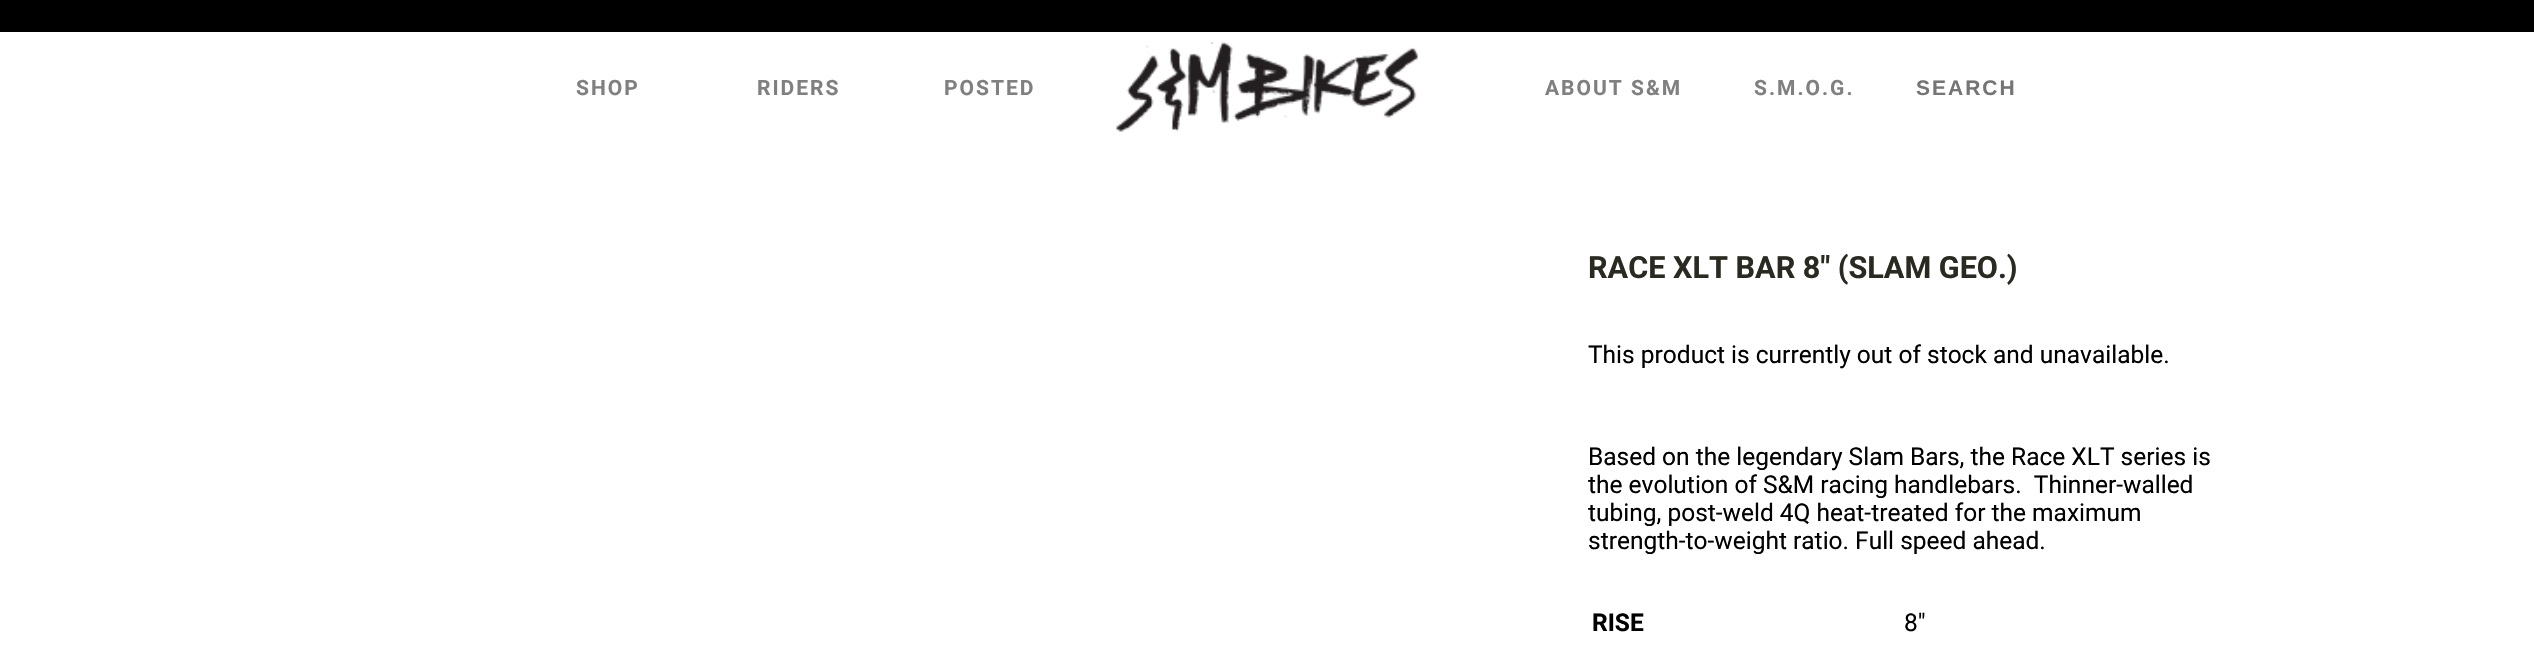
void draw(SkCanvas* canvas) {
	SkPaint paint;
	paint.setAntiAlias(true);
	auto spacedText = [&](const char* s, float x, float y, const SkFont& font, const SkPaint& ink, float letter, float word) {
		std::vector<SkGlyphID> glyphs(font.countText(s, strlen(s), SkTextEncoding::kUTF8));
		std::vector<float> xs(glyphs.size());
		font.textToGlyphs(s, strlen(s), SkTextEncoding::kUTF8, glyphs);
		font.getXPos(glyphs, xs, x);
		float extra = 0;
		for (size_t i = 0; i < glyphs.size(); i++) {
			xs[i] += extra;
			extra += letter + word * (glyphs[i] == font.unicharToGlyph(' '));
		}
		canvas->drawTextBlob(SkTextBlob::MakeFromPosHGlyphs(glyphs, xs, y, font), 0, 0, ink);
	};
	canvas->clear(0xffffffff);
	paint.setColor(0xff000000);
	canvas->drawRect(SkRect::MakeXYWH(0, 0, 2534, 32), paint);
	canvas->drawImageRect(SkImages::DeferredFromEncodedData(SkData::MakeFromFileName("img1.png")), SkRect::MakeXYWH(1116, 42, 302, 90), SkSamplingOptions());
	SkFont f1(fontMgr->matchFamilyStyle("Roboto", SkFontStyle::Bold()), 21);
	f1.setSubpixel(true);
	paint.setColor(0xff808080);
	spacedText("SHOP", 576, 95, f1, paint, 2, 0);
	spacedText("RIDERS", 757, 95, f1, paint, 2, 0);
	spacedText("POSTED", 944, 95, f1, paint, 2, 0);
	spacedText("ABOUT S&M", 1545, 95, f1, paint, 2, 0);
	spacedText("S.M.O.G.", 1754, 95, f1, paint, 2, 0);
	SkFont f2(fontMgr->matchFamilyStyle("Liberation Sans", SkFontStyle::Bold()), 21);
	f2.setSubpixel(true);
	paint.setColor(0xff757575);
	spacedText("SEARCH", 1916, 95, f2, paint, 2, 0);
	SkFont f3(fontMgr->matchFamilyStyle("Roboto", SkFontStyle::Bold()), 30.6);
	f3.setSubpixel(true);
	paint.setColor(0xff2a2a21);
	canvas->drawString("RACE XLT BAR 8″ (SLAM GEO.)", 1588, 278, f3, paint);
	SkFont f4(fontMgr->matchFamilyStyle("Roboto", SkFontStyle::Normal()), 24.5);
	f4.setSubpixel(true);
	paint.setColor(0xff000000);
	canvas->drawString("This product is currently out of stock and unavailable.", 1588, 363, f4, paint);
	canvas->drawString("Based on the legendary Slam Bars, the Race XLT series is", 1588, 465, f4, paint);
	canvas->drawString("the evolution of S&M racing handlebars.  Thinner-walled", 1588, 493, f4, paint);
	canvas->drawString("tubing, post-weld 4Q heat-treated for the maximum", 1588, 521, f4, paint);
	canvas->drawString("strength-to-weight ratio. Full speed ahead.", 1588, 549, f4, paint);
	SkFont f5(fontMgr->matchFamilyStyle("Roboto", SkFontStyle::Bold()), 24.5);
	f5.setSubpixel(true);
	canvas->drawString("RISE", 1592, 631, f5, paint);
	canvas->drawString("8″", 1904, 631, f4, paint);
}
